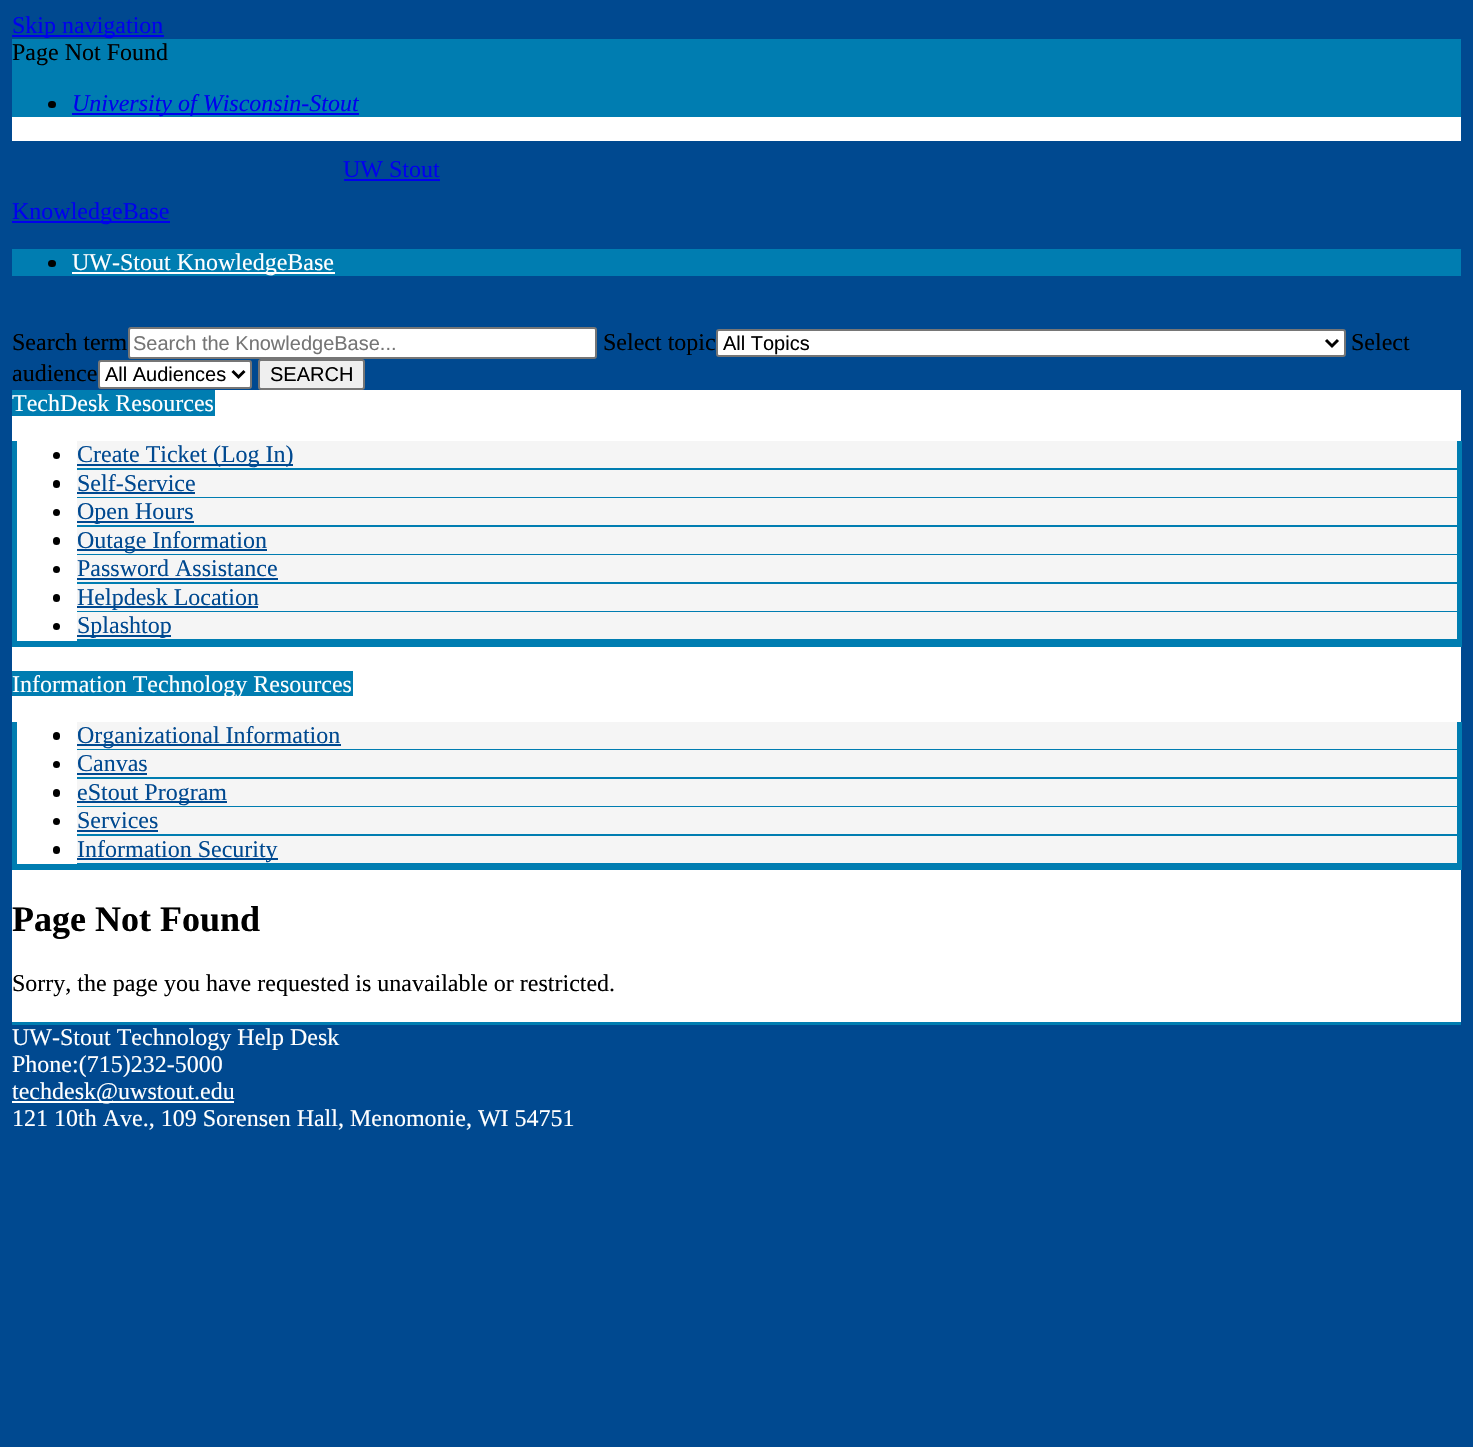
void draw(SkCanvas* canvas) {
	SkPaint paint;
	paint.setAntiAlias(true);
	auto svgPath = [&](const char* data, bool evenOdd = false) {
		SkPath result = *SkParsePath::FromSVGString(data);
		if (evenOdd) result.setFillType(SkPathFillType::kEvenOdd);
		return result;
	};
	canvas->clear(0xff004990);
	paint.setColor(0xff0000ee);
	canvas->drawRect(SkRect::MakeXYWH(12, 35, 152, 2), paint);
	SkFont f1(fontMgr->matchFamilyStyle("Liberation Serif", SkFontStyle::Normal()), 24);
	f1.setSubpixel(true);
	canvas->drawString("Skip navigation", 12, 33, f1, paint);
	paint.setColor(0xffffffff);
	canvas->drawRect(SkRect::MakeXYWH(12, 117, 1449, 905), paint);
	paint.setColor(0xff007db1);
	canvas->drawRect(SkRect::MakeXYWH(12, 39, 1449, 78), paint);
	paint.setColor(0xff000000);
	canvas->drawString("Page Not Found", 12, 60, f1, paint);
	canvas->drawRoundRect(SkRect::MakeXYWH(48, 101, 8, 7), 3.5, 3.5, paint);
	paint.setColor(0xff0000ee);
	canvas->drawRect(SkRect::MakeXYWH(72, 113, 287, 2), paint);
	SkFont f2(fontMgr->matchFamilyStyle("Liberation Serif", SkFontStyle::Italic()), 24);
	f2.setSubpixel(true);
	canvas->drawString("University of Wisconsin-Stout", 72, 111, f2, paint);
	paint.setColor(0xff004990);
	canvas->drawRect(SkRect::MakeXYWH(12, 141, 1449, 249), paint);
	paint.setColor(0xff0000ee);
	canvas->drawString("UW Stout", 343, 177, f1, paint);
	canvas->drawRect(SkRect::MakeXYWH(344, 179, 96, 2), paint);
	canvas->drawRect(SkRect::MakeXYWH(12, 221, 158, 2), paint);
	canvas->drawString("KnowledgeBase", 12, 219, f1, paint);
	paint.setColor(0xff007db1);
	canvas->drawRect(SkRect::MakeXYWH(12, 249, 1449, 27), paint);
	paint.setColor(0xff000000);
	canvas->drawRoundRect(SkRect::MakeXYWH(48, 260, 8, 7), 3.5, 3.5, paint);
	paint.setColor(0xffffffff);
	canvas->drawRect(SkRect::MakeXYWH(72, 272, 263, 2), paint);
	canvas->drawString("UW-Stout KnowledgeBase", 72, 270, f1, paint);
	paint.setColor(0xff000000);
	canvas->drawString("Search term", 12, 350, f1, paint);
	paint.setColor(0xffffffff);
	canvas->drawRoundRect(SkRect::MakeXYWH(129, 328, 467, 30), 2, 2, paint);
	paint.setStroke(true);
	paint.setStrokeWidth(2);
	paint.setColor(0xff767676);
	canvas->drawRoundRect(SkRect::MakeXYWH(129, 328, 467, 30), 2, 2, paint);
	SkFont f3(fontMgr->matchFamilyStyle("Liberation Sans", SkFontStyle::Normal()), 20);
	f3.setSubpixel(true);
	paint.setStroke(false);
	paint.setColor(0xff757575);
	canvas->drawString("Search the KnowledgeBase...", 133, 350, f3, paint);
	paint.setColor(0xff000000);
	canvas->drawString("Select topic", 603, 350, f1, paint);
	paint.setColor(0xffffffff);
	canvas->drawRoundRect(SkRect::MakeXYWH(717, 330, 628, 26), 2, 2, paint);
	paint.setStroke(true);
	paint.setColor(0xff767676);
	canvas->drawRoundRect(SkRect::MakeXYWH(717, 330, 628, 26), 2, 2, paint);
	paint.setStrokeWidth(3);
	paint.setColor(0xff000000);
	canvas->drawPath(svgPath("M1326 340L1332 346L1338 340"), paint);
	paint.setStroke(false);
	canvas->drawString("All Topics", 723, 350, f3, paint);
	canvas->drawString("Select", 1351, 350, f1, paint);
	canvas->drawString("audience", 12, 381, f1, paint);
	paint.setColor(0xffffffff);
	canvas->drawRoundRect(SkRect::MakeXYWH(99, 361, 152, 27), 2, 2, paint);
	paint.setStroke(true);
	paint.setStrokeWidth(2);
	paint.setColor(0xff767676);
	canvas->drawRoundRect(SkRect::MakeXYWH(99, 361, 152, 27), 2, 2, paint);
	paint.setStrokeWidth(3);
	paint.setColor(0xff000000);
	canvas->drawPath(svgPath("M232.5 371L238.5 377L244.5 371"), paint);
	paint.setStroke(false);
	canvas->drawString("All Audiences", 105, 381, f3, paint);
	paint.setColor(0xffefefef);
	canvas->drawRoundRect(SkRect::MakeXYWH(259, 360, 105, 29), 2, 2, paint);
	paint.setStroke(true);
	paint.setStrokeWidth(2);
	paint.setColor(0xff767676);
	canvas->drawRoundRect(SkRect::MakeXYWH(259, 360, 105, 29), 2, 2, paint);
	paint.setStroke(false);
	paint.setColor(0xff000000);
	canvas->drawString("SEARCH", 270, 381, f3, paint);
	paint.setColor(0xff007db1);
	canvas->drawRect(SkRect::MakeXYWH(12, 390, 203, 26), paint);
	paint.setColor(0xffffffff);
	canvas->drawString("TechDesk Resources", 12, 411, f1, paint);
	paint.setColor(0xff007db1);
	canvas->drawRect(SkRect::MakeXYWH(1457, 441, 5, 206), paint);
	canvas->drawRect(SkRect::MakeXYWH(12, 641, 1449, 6), paint);
	canvas->drawRect(SkRect::MakeXYWH(12, 441, 5, 206), paint);
	paint.setColor(0xfff5f5f5);
	canvas->drawRect(SkRect::MakeXYWH(77, 441, 1380, 27), paint);
	paint.setColor(0xff007db1);
	canvas->drawRect(SkRect::MakeXYWH(77, 468, 1380, 2), paint);
	paint.setColor(0xff000000);
	canvas->drawCircle(56.5, 455.5, 3.5, paint);
	paint.setColor(0xff004990);
	canvas->drawRect(SkRect::MakeXYWH(77, 464, 216, 2), paint);
	canvas->drawString("Create Ticket (Log In)", 77, 462, f1, paint);
	paint.setColor(0xfff5f5f5);
	canvas->drawRect(SkRect::MakeXYWH(77, 470, 1380, 27), paint);
	paint.setColor(0xff007db1);
	canvas->drawRect(SkRect::MakeXYWH(77, 497, 1380, 1), paint);
	paint.setColor(0xff000000);
	canvas->drawRoundRect(SkRect::MakeXYWH(53, 480, 7, 8), 3.5, 3.5, paint);
	paint.setColor(0xff004990);
	canvas->drawString("Self-Service", 77, 491, f1, paint);
	canvas->drawRect(SkRect::MakeXYWH(77, 492, 118, 2), paint);
	paint.setColor(0xfff5f5f5);
	canvas->drawRect(SkRect::MakeXYWH(77, 498, 1380, 27), paint);
	paint.setColor(0xff007db1);
	canvas->drawRect(SkRect::MakeXYWH(77, 525, 1380, 2), paint);
	paint.setColor(0xff000000);
	canvas->drawCircle(56.5, 512.5, 3.5, paint);
	paint.setColor(0xff004990);
	canvas->drawRect(SkRect::MakeXYWH(77, 521, 117, 2), paint);
	canvas->drawString("Open Hours", 77, 519, f1, paint);
	paint.setColor(0xfff5f5f5);
	canvas->drawRect(SkRect::MakeXYWH(77, 527, 1380, 27), paint);
	paint.setColor(0xff007db1);
	canvas->drawRect(SkRect::MakeXYWH(77, 554, 1380, 1), paint);
	paint.setColor(0xff000000);
	canvas->drawRoundRect(SkRect::MakeXYWH(53, 537, 7, 8), 3.5, 3.5, paint);
	paint.setColor(0xff004990);
	canvas->drawRect(SkRect::MakeXYWH(77, 549, 190, 2), paint);
	canvas->drawString("Outage Information", 77, 548, f1, paint);
	paint.setColor(0xfff5f5f5);
	canvas->drawRect(SkRect::MakeXYWH(77, 555, 1380, 27), paint);
	paint.setColor(0xff007db1);
	canvas->drawRect(SkRect::MakeXYWH(77, 582, 1380, 2), paint);
	paint.setColor(0xff000000);
	canvas->drawCircle(56.5, 569.5, 3.5, paint);
	paint.setColor(0xff004990);
	canvas->drawString("Password Assistance", 77, 576, f1, paint);
	canvas->drawRect(SkRect::MakeXYWH(77, 578, 201, 2), paint);
	paint.setColor(0xfff5f5f5);
	canvas->drawRect(SkRect::MakeXYWH(77, 584, 1380, 27), paint);
	paint.setColor(0xff007db1);
	canvas->drawRect(SkRect::MakeXYWH(77, 611, 1380, 1), paint);
	paint.setColor(0xff000000);
	canvas->drawRoundRect(SkRect::MakeXYWH(53, 594, 7, 8), 3.5, 3.5, paint);
	paint.setColor(0xff004990);
	canvas->drawRect(SkRect::MakeXYWH(77, 606, 181, 2), paint);
	canvas->drawString("Helpdesk Location", 77, 605, f1, paint);
	paint.setColor(0xfff5f5f5);
	canvas->drawRect(SkRect::MakeXYWH(77, 612, 1380, 27), paint);
	paint.setColor(0xff007db1);
	canvas->drawRect(SkRect::MakeXYWH(77, 639, 1380, 2), paint);
	paint.setColor(0xff000000);
	canvas->drawCircle(56.5, 626.5, 3.5, paint);
	paint.setColor(0xff004990);
	canvas->drawRect(SkRect::MakeXYWH(77, 635, 94, 2), paint);
	canvas->drawString("Splashtop", 77, 633, f1, paint);
	paint.setColor(0xff007db1);
	canvas->drawRect(SkRect::MakeXYWH(12, 671, 341, 25), paint);
	paint.setColor(0xffffffff);
	canvas->drawString("Information Technology Resources", 12, 692, f1, paint);
	paint.setColor(0xff007db1);
	canvas->drawRect(SkRect::MakeXYWH(1457, 722, 5, 148), paint);
	canvas->drawRect(SkRect::MakeXYWH(12, 864, 1449, 6), paint);
	canvas->drawRect(SkRect::MakeXYWH(12, 722, 5, 148), paint);
	paint.setColor(0xfff5f5f5);
	canvas->drawRect(SkRect::MakeXYWH(77, 722, 1380, 27), paint);
	paint.setColor(0xff007db1);
	canvas->drawRect(SkRect::MakeXYWH(77, 749, 1380, 1), paint);
	paint.setColor(0xff000000);
	canvas->drawRoundRect(SkRect::MakeXYWH(53, 732, 7, 8), 3.5, 3.5, paint);
	paint.setColor(0xff004990);
	canvas->drawRect(SkRect::MakeXYWH(77, 744, 264, 2), paint);
	canvas->drawString("Organizational Information", 77, 743, f1, paint);
	paint.setColor(0xfff5f5f5);
	canvas->drawRect(SkRect::MakeXYWH(77, 750, 1380, 27), paint);
	paint.setColor(0xff007db1);
	canvas->drawRect(SkRect::MakeXYWH(77, 777, 1380, 2), paint);
	paint.setColor(0xff000000);
	canvas->drawCircle(56.5, 764.5, 3.5, paint);
	paint.setColor(0xff004990);
	canvas->drawString("Canvas", 77, 771, f1, paint);
	canvas->drawRect(SkRect::MakeXYWH(77, 773, 70, 2), paint);
	paint.setColor(0xfff5f5f5);
	canvas->drawRect(SkRect::MakeXYWH(77, 779, 1380, 27), paint);
	paint.setColor(0xff007db1);
	canvas->drawRect(SkRect::MakeXYWH(77, 806, 1380, 1), paint);
	paint.setColor(0xff000000);
	canvas->drawRoundRect(SkRect::MakeXYWH(53, 789, 7, 8), 3.5, 3.5, paint);
	paint.setColor(0xff004990);
	canvas->drawRect(SkRect::MakeXYWH(77, 801, 150, 2), paint);
	canvas->drawString("eStout Program", 77, 800, f1, paint);
	paint.setColor(0xfff5f5f5);
	canvas->drawRect(SkRect::MakeXYWH(77, 807, 1380, 27), paint);
	paint.setColor(0xff007db1);
	canvas->drawRect(SkRect::MakeXYWH(77, 834, 1380, 2), paint);
	paint.setColor(0xff000000);
	canvas->drawCircle(56.5, 821.5, 3.5, paint);
	paint.setColor(0xff004990);
	canvas->drawString("Services", 77, 828, f1, paint);
	canvas->drawRect(SkRect::MakeXYWH(77, 830, 81, 2), paint);
	paint.setColor(0xfff5f5f5);
	canvas->drawRect(SkRect::MakeXYWH(77, 836, 1380, 27), paint);
	paint.setColor(0xff007db1);
	canvas->drawRect(SkRect::MakeXYWH(77, 863, 1380, 1), paint);
	paint.setColor(0xff000000);
	canvas->drawRoundRect(SkRect::MakeXYWH(53, 846, 7, 8), 3.5, 3.5, paint);
	paint.setColor(0xff004990);
	canvas->drawRect(SkRect::MakeXYWH(77, 858, 201, 2), paint);
	canvas->drawString("Information Security", 77, 857, f1, paint);
	SkFont f4(fontMgr->matchFamilyStyle("Liberation Serif", SkFontStyle::Bold()), 36);
	f4.setSubpixel(true);
	paint.setColor(0xff000000);
	canvas->drawString("Page Not Found", 12, 931, f4, paint);
	canvas->drawString("Sorry, the page you have requested is unavailable or restricted.", 12, 991, f1, paint);
	paint.setColor(0xff007db1);
	canvas->drawRect(SkRect::MakeXYWH(12, 1022, 1449, 3), paint);
	paint.setColor(0xffffffff);
	canvas->drawString("UW-Stout Technology Help Desk", 12, 1045, f1, paint);
	canvas->drawString("Phone:(715)232-5000", 12, 1072, f1, paint);
	canvas->drawRect(SkRect::MakeXYWH(12, 1101, 222, 2), paint);
	canvas->drawString("techdesk@uwstout.edu", 12, 1099, f1, paint);
	canvas->drawString("121 10th Ave., 109 Sorensen Hall, Menomonie, WI 54751", 12, 1126, f1, paint);
}
